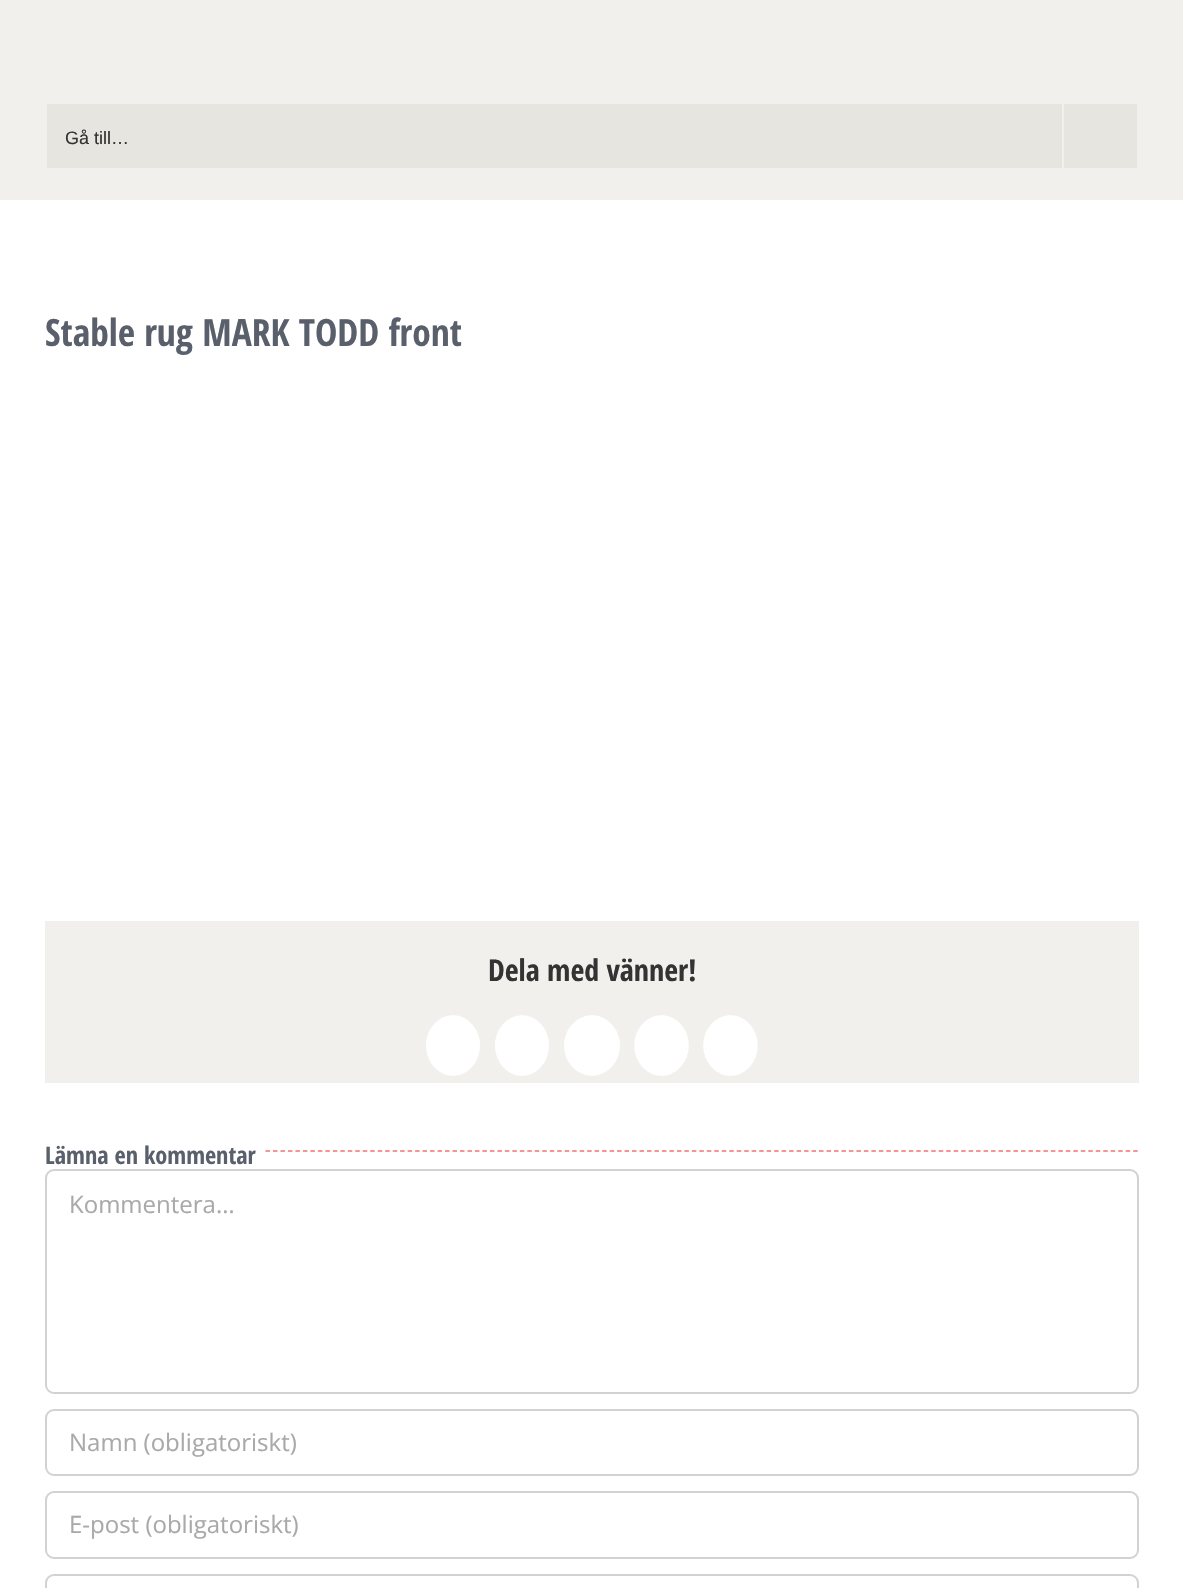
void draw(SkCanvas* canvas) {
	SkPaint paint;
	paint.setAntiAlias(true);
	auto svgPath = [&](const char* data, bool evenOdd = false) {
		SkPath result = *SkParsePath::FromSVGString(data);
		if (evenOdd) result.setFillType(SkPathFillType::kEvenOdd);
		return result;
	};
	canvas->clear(0xffffffff);
	paint.setColor(0xfff1f0ec);
	canvas->drawRect(SkRect::MakeXYWH(0, 0, 1183, 200), paint);
	paint.setColor(0xffe6e5df);
	canvas->drawRect(SkRect::MakeXYWH(47, 104, 1090, 64), paint);
	SkFont f1(fontMgr->matchFamilyStyle("Liberation Sans", SkFontStyle::Normal()), 18);
	f1.setSubpixel(true);
	paint.setColor(0xff333333);
	canvas->drawString("Gå till…", 65, 144, f1, paint);
	paint.setColor(0xfff1f0ec);
	canvas->drawRect(SkRect::MakeXYWH(1062, 104, 2, 64), paint);
	SkFont f2(fontMgr->matchFamilyStyle("Open Sans Condensed", SkFontStyle::Bold()), 37.5);
	f2.setSubpixel(true);
	paint.setColor(0xff595f6b);
	canvas->drawString("Stable rug MARK TODD front", 45, 346, f2, paint);
	paint.setColor(0xfff1f0ec);
	canvas->drawRect(SkRect::MakeXYWH(45, 921, 1094, 162), paint);
	SkFont f3(fontMgr->matchFamilyStyle("Open Sans Condensed", SkFontStyle::Bold()), 30);
	f3.setSubpixel(true);
	paint.setColor(0xff333333);
	canvas->drawString("Dela med vänner!", 488, 981, f3, paint);
	paint.setColor(0xffffffff);
	canvas->drawOval(SkRect::MakeXYWH(426, 1015.5, 54, 60), paint);
	paint.setStroke(true);
	paint.setStrokeWidth(1.5);
	canvas->drawPath(svgPath("M453 1016C467.5 1016 479 1029.5 479 1045.5C479 1061.5 467.5 1075 453 1075C438.5 1075 427 1061.5 427 1045.5C427 1029.5 438.5 1016 453 1016Z"), paint);
	paint.setStroke(false);
	canvas->drawOval(SkRect::MakeXYWH(495, 1015.5, 54, 60), paint);
	paint.setStroke(true);
	canvas->drawPath(svgPath("M522 1016C536.5 1016 548 1029.5 548 1045.5C548 1061.5 536.5 1075 522 1075C507.5 1075 496 1061.5 496 1045.5C496 1029.5 507.5 1016 522 1016Z"), paint);
	paint.setStroke(false);
	canvas->drawOval(SkRect::MakeXYWH(564, 1015.5, 56, 60), paint);
	paint.setStroke(true);
	canvas->drawPath(svgPath("M592 1016C606.5 1016 619 1029.5 619 1045.5C619 1061.5 606.5 1075 592 1075C577 1075 565 1061.5 565 1045.5C565 1029.5 577 1016 592 1016Z"), paint);
	paint.setStroke(false);
	canvas->drawOval(SkRect::MakeXYWH(634.5, 1015.5, 54, 60), paint);
	paint.setStroke(true);
	canvas->drawPath(svgPath("M661.5 1016C676 1016 688 1029.5 688 1045.5C688 1061.5 676 1075 661.5 1075C647 1075 635 1061.5 635 1045.5C635 1029.5 647 1016 661.5 1016Z"), paint);
	paint.setStroke(false);
	canvas->drawOval(SkRect::MakeXYWH(703.5, 1015.5, 54, 60), paint);
	paint.setStroke(true);
	canvas->drawPath(svgPath("M730.5 1016C745 1016 757 1029.5 757 1045.5C757 1061.5 745 1075 730.5 1075C716 1075 704 1061.5 704 1045.5C704 1029.5 716 1016 730.5 1016Z"), paint);
	SkFont f4(fontMgr->matchFamilyStyle("Open Sans Condensed", SkFontStyle::Bold()), 24.25);
	f4.setSubpixel(true);
	paint.setStroke(false);
	paint.setColor(0xff595f6b);
	canvas->drawString("Lämna en kommentar", 45, 1164, f4, paint);
	paint.setStroke(true);
	paint.setColor(0xfff46f72);
	paint.setPathEffect(SkDashPathEffect::Make({{4.5f, 2.98f}}, 0));
	canvas->drawPath(svgPath("M265.5 1151H1138.5"), paint);
	paint.setPathEffect(nullptr);
	paint.setStrokeWidth(2);
	paint.setColor(0xffd2d2d2);
	canvas->drawRoundRect(SkRect::MakeXYWH(46, 1170, 1092, 223), 8, 8, paint);
	SkFont f5(fontMgr->matchFamilyStyle("Open Sans", SkFontStyle::Normal()), 24);
	f5.setSubpixel(true);
	paint.setStroke(false);
	paint.setColor(0xffaaa9a9);
	canvas->drawString("Kommentera…", 69, 1213, f5, paint);
	paint.setStroke(true);
	paint.setColor(0xffd2d2d2);
	canvas->drawRoundRect(SkRect::MakeXYWH(46, 1410, 1092, 65), 8, 8, paint);
	paint.setStroke(false);
	paint.setColor(0xffaaa9a9);
	canvas->drawString("Namn (obligatoriskt)", 69, 1451, f5, paint);
	paint.setStroke(true);
	paint.setColor(0xffd2d2d2);
	canvas->drawRoundRect(SkRect::MakeXYWH(46, 1492, 1092, 66), 8, 8, paint);
	paint.setStroke(false);
	paint.setColor(0xffaaa9a9);
	canvas->drawString("E-post (obligatoriskt)", 69, 1533, f5, paint);
	paint.setStroke(true);
	paint.setColor(0xffd2d2d2);
	canvas->drawRoundRect(SkRect::MakeXYWH(46, 1575, 1092, 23), 8, 8, paint);
}
